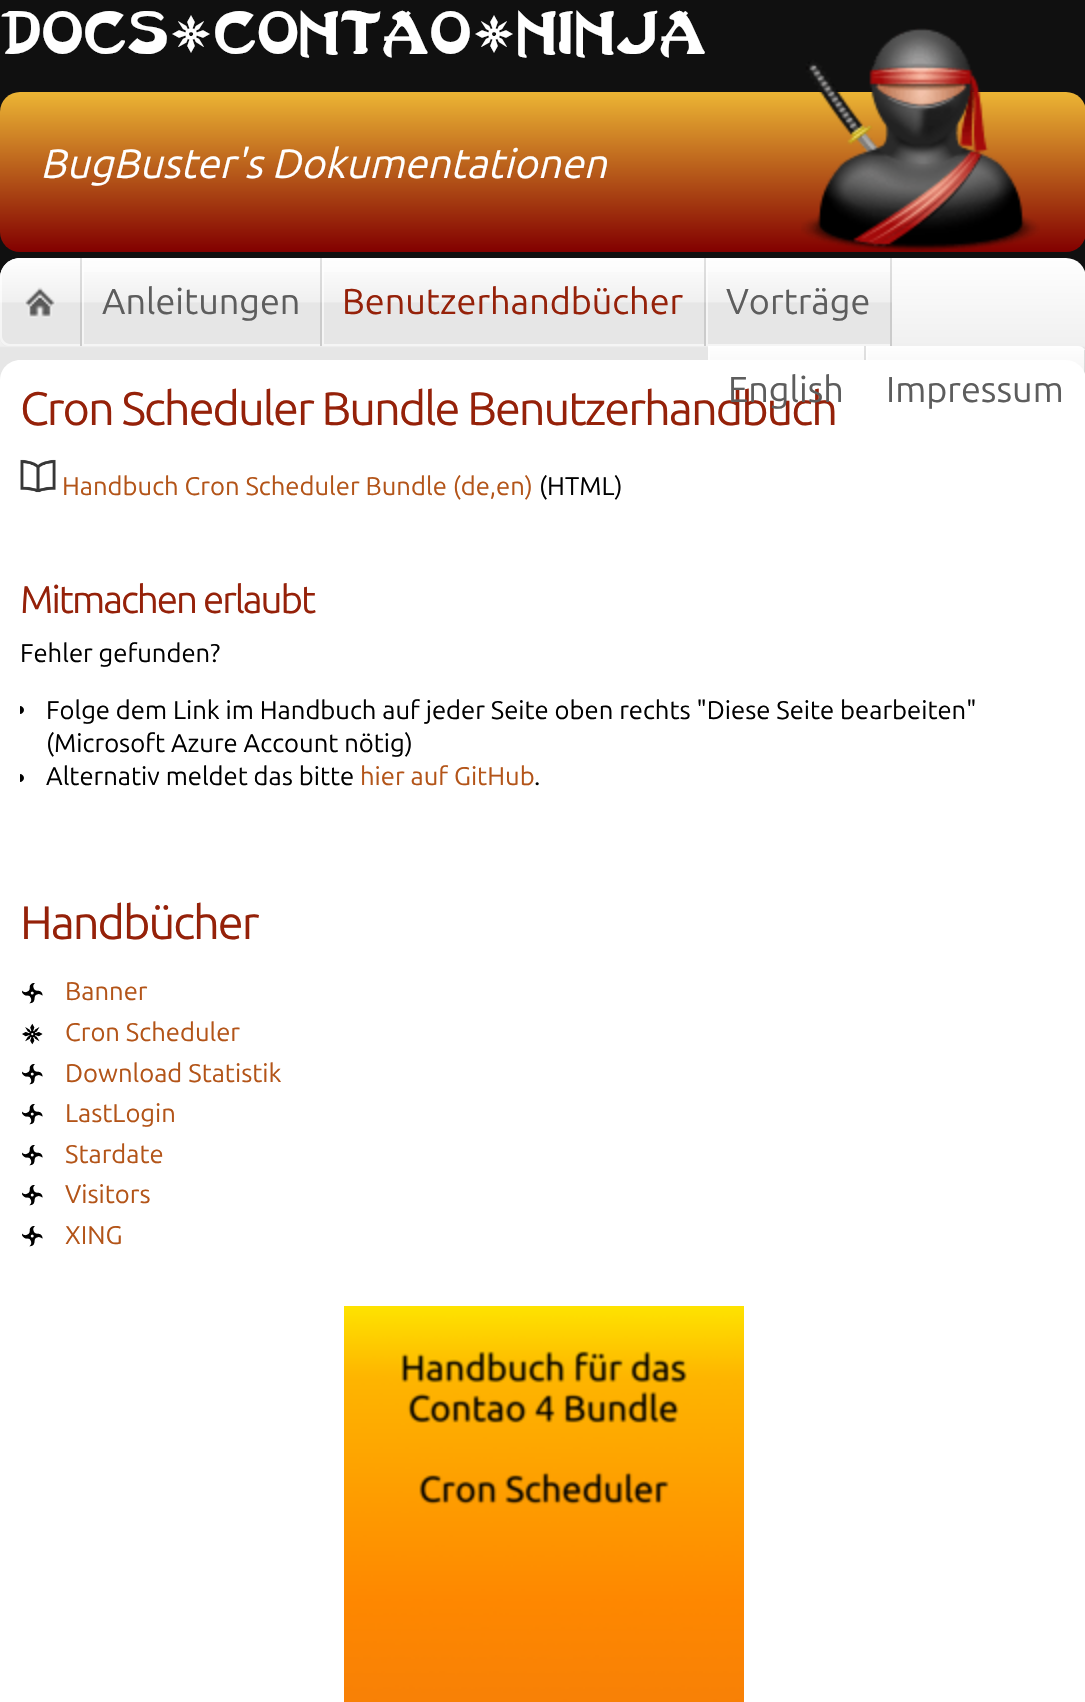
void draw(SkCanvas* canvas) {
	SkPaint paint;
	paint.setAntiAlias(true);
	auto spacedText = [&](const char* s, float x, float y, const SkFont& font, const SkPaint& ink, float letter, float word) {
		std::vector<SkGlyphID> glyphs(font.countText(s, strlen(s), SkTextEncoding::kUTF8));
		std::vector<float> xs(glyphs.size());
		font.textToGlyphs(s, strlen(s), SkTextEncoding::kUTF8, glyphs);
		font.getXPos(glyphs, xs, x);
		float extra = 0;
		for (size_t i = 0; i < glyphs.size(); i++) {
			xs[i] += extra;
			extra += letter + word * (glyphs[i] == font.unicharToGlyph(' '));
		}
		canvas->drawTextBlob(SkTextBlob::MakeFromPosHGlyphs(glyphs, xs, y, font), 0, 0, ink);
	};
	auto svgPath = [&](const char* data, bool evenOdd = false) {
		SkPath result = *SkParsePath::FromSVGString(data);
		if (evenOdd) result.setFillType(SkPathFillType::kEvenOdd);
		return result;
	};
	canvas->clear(0xff101010);
	SkFont f1(fontMgr->matchFamilyStyle("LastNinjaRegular", SkFontStyle::Normal()), 46.9);
	f1.setSubpixel(true);
	paint.setColor(0xffffffff);
	canvas->drawString("Docs*Contao*Ninja", 0, 54, f1, paint);
	{
		const SkColor colors[] = {0xffecb534, 0xff820000};
		const float stops[] = {0, 1};
		const SkPoint ends[] = {{543, 92}, {543, 252}};
		paint.setShader(SkGradientShader::MakeLinear(ends, colors, stops, 2, SkTileMode::kClamp));
		paint.setAlpha(255);
	}
	canvas->drawRoundRect(SkRect::MakeXYWH(0, 92, 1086, 160), 20, 20, paint);
	canvas->drawImageRect(SkImages::DeferredFromEncodedData(SkData::MakeFromFileName("img1.png")), SkRect::MakeXYWH(801, 28, 239, 224), SkSamplingOptions());
	SkFont f2(fontMgr->matchFamilyStyle("Ubuntu", SkFontStyle::Italic()), 41);
	f2.setSubpixel(true);
	paint.setShader(nullptr);
	paint.setColor(0xffffffff);
	canvas->drawString("BugBuster's Dokumentationen", 40, 178, f2, paint);
	{
		const SkColor colors[] = {0xfffefefe, 0xfff0f0f0, 0xffe6e6e6};
		const float stops[] = {0, 0.5, 0.51};
		const SkPoint ends[] = {{543, 258}, {543, 434}};
		paint.setShader(SkGradientShader::MakeLinear(ends, colors, stops, 3, SkTileMode::kClamp));
		paint.setAlpha(255);
	}
	canvas->drawRoundRect(SkRect::MakeXYWH(0, 258, 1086, 176), 20, 20, paint);
	{
		const SkColor colors[] = {0xfffefefe, 0xfff0f0f0, 0xffe6e6e6};
		const float stops[] = {0, 0.5, 0.51};
		const SkPoint ends[] = {{40, 258}, {40, 346}};
		paint.setShader(SkGradientShader::MakeLinear(ends, colors, stops, 3, SkTileMode::kClamp));
		paint.setAlpha(255);
	}
	canvas->drawPath(svgPath("M20 258H82V346H8C3.5 346 0 342.5 0 338V278C0 267 9 258 20 258Z"), paint);
	{
		const SkColor colors[] = {0xffe1e1e1, 0xffd4d4d4, 0xffcbcbcb};
		const float stops[] = {0, 0.5, 0.51};
		const SkPoint ends[] = {{40, 258}, {40, 346}};
		paint.setShader(SkGradientShader::MakeLinear(ends, colors, stops, 3, SkTileMode::kClamp));
		paint.setAlpha(255);
	}
	canvas->drawRect(SkRect::MakeXYWH(80, 258, 2, 88), paint);
	paint.setShader(nullptr);
	paint.setColor(0x99ffffff);
	canvas->drawPath(svgPath("M0 278V338C0 342 4 346 8 346H80V344H10C6 344 2 340 2 336V269C1 272 0 275 0 278Z"), paint);
	canvas->drawImageRect(SkImages::DeferredFromEncodedData(SkData::MakeFromFileName("img2.png")), SkRect::MakeXYWH(24, 287, 32, 31), SkSamplingOptions());
	{
		const SkColor colors[] = {0xfffefefe, 0xfff0f0f0, 0xffe6e6e6};
		const float stops[] = {0, 0.5, 0.51};
		const SkPoint ends[] = {{201, 258}, {201, 346}};
		paint.setShader(SkGradientShader::MakeLinear(ends, colors, stops, 3, SkTileMode::kClamp));
		paint.setAlpha(255);
	}
	canvas->drawRect(SkRect::MakeXYWH(82, 272, 238, 74), paint);
	{
		const SkColor colors[] = {0xffe1e1e1, 0xffd4d4d4, 0xffcbcbcb};
		const float stops[] = {0, 0.5, 0.51};
		const SkPoint ends[] = {{201, 258}, {201, 346}};
		paint.setShader(SkGradientShader::MakeLinear(ends, colors, stops, 3, SkTileMode::kClamp));
		paint.setAlpha(255);
	}
	canvas->drawRect(SkRect::MakeXYWH(320, 258, 2, 88), paint);
	canvas->save();
	canvas->clipRect(SkRect::MakeXYWH(82, 258, 238, 88));
	paint.setShader(nullptr);
	paint.setColor(0x99ffffff);
	canvas->drawPath(svgPath("M20 258H84V344H322V258H518V434H20C9 434 0 425 0 414V278C0 267 9 258 20 258Z"), paint);
	canvas->restore();
	SkFont f3(fontMgr->matchFamilyStyle("Ubuntu", SkFontStyle::Normal()), 36);
	f3.setSubpixel(true);
	paint.setColor(0xff5d5d5d);
	canvas->drawString("Anleitungen", 102, 314, f3, paint);
	{
		const SkColor colors[] = {0xfffefefe, 0xfff0f0f0, 0xffe6e6e6};
		const float stops[] = {0, 0.5, 0.51};
		const SkPoint ends[] = {{513, 258}, {513, 346}};
		paint.setShader(SkGradientShader::MakeLinear(ends, colors, stops, 3, SkTileMode::kClamp));
		paint.setAlpha(255);
	}
	canvas->drawRect(SkRect::MakeXYWH(322, 272, 382, 74), paint);
	{
		const SkColor colors[] = {0xffe1e1e1, 0xffd4d4d4, 0xffcbcbcb};
		const float stops[] = {0, 0.5, 0.51};
		const SkPoint ends[] = {{513, 258}, {513, 346}};
		paint.setShader(SkGradientShader::MakeLinear(ends, colors, stops, 3, SkTileMode::kClamp));
		paint.setAlpha(255);
	}
	canvas->drawRect(SkRect::MakeXYWH(704, 258, 2, 88), paint);
	canvas->save();
	canvas->clipRect(SkRect::MakeXYWH(322, 258, 382, 88));
	paint.setShader(nullptr);
	paint.setColor(0x99ffffff);
	canvas->drawPath(svgPath("M124 434V258H324V344H706V258H902V434Z"), paint);
	canvas->restore();
	paint.setColor(0xff952109);
	canvas->drawString("Benutzerhandbücher", 342, 314, f3, paint);
	{
		const SkColor colors[] = {0xfffefefe, 0xfff0f0f0, 0xffe6e6e6};
		const float stops[] = {0, 0.5, 0.51};
		const SkPoint ends[] = {{798, 258}, {798, 346}};
		paint.setShader(SkGradientShader::MakeLinear(ends, colors, stops, 3, SkTileMode::kClamp));
		paint.setAlpha(255);
	}
	canvas->drawRect(SkRect::MakeXYWH(706, 272, 184, 74), paint);
	{
		const SkColor colors[] = {0xffe1e1e1, 0xffd4d4d4, 0xffcbcbcb};
		const float stops[] = {0, 0.5, 0.51};
		const SkPoint ends[] = {{798, 258}, {798, 346}};
		paint.setShader(SkGradientShader::MakeLinear(ends, colors, stops, 3, SkTileMode::kClamp));
		paint.setAlpha(255);
	}
	canvas->drawRect(SkRect::MakeXYWH(890, 258, 2, 88), paint);
	canvas->save();
	canvas->clipRect(SkRect::MakeXYWH(706, 258, 184, 88));
	paint.setShader(nullptr);
	paint.setColor(0x99ffffff);
	canvas->drawPath(svgPath("M508 434V258H708V344H892V258H1066C1077 258 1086 267 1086 278V414C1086 425 1077 434 1066 434Z"), paint);
	canvas->restore();
	paint.setColor(0xff5d5d5d);
	canvas->drawString("Vorträge", 726, 314, f3, paint);
	{
		const SkColor colors[] = {0xfffefefe, 0xfff0f0f0, 0xffe6e6e6};
		const float stops[] = {0, 0.5, 0.51};
		const SkPoint ends[] = {{786, 346}, {786, 434}};
		paint.setShader(SkGradientShader::MakeLinear(ends, colors, stops, 3, SkTileMode::kClamp));
		paint.setAlpha(255);
	}
	canvas->drawRect(SkRect::MakeXYWH(708, 346, 156, 14), paint);
	{
		const SkColor colors[] = {0xffe1e1e1, 0xffd4d4d4, 0xffcbcbcb};
		const float stops[] = {0, 0.5, 0.51};
		const SkPoint ends[] = {{786, 346}, {786, 434}};
		paint.setShader(SkGradientShader::MakeLinear(ends, colors, stops, 3, SkTileMode::kClamp));
		paint.setAlpha(255);
	}
	canvas->drawRect(SkRect::MakeXYWH(864, 346, 2, 14), paint);
	canvas->save();
	canvas->clipRect(SkRect::MakeXYWH(708, 346, 156, 88));
	paint.setShader(nullptr);
	paint.setColor(0x99ffffff);
	canvas->drawPath(svgPath("M510 434V258H1062V434ZM710 344V432H866V344Z", true), paint);
	canvas->restore();
	{
		const SkColor colors[] = {0xfffefefe, 0xfff0f0f0, 0xffe6e6e6};
		const float stops[] = {0, 0.5, 0.51};
		const SkPoint ends[] = {{975, 346}, {975, 434}};
		paint.setShader(SkGradientShader::MakeLinear(ends, colors, stops, 3, SkTileMode::kClamp));
		paint.setAlpha(255);
	}
	canvas->drawPath(svgPath("M866 346H1078C1082.5 346 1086 349.5 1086 354V414C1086 425 1077 434 1066 434H866Z"), paint);
	paint.setShader(nullptr);
	paint.setColor(0x99ffffff);
	canvas->drawPath(svgPath("M866 346V434H1066C1069 434 1072 433 1075 432H868V346Z"), paint);
	paint.setColor(0x1f090909);
	canvas->drawRect(SkRect::MakeXYWH(1084, 350, 1, 24), paint);
	paint.setColor(0xffffffff);
	canvas->drawPath(svgPath("M20 360H1066C1077 360 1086 369 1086 380V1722H0V380C0 369 9 360 20 360Z"), paint);
	SkFont f4(fontMgr->matchFamilyStyle("Ubuntu", SkFontStyle::Normal()), 46.9);
	f4.setSubpixel(true);
	paint.setColor(0xff952109);
	spacedText("Cron Scheduler Bundle Benutzerhandbuch", 20, 425, f4, paint, -2, 0);
	paint.setColor(0xff5d5d5d);
	canvas->drawString("English", 728, 402, f3, paint);
	canvas->drawString("Impressum", 886, 402, f3, paint);
	canvas->drawImageRect(SkImages::DeferredFromEncodedData(SkData::MakeFromFileName("img3.png")), SkRect::MakeXYWH(20, 459, 36, 34), SkSamplingOptions());
	SkFont f5(fontMgr->matchFamilyStyle("Ubuntu", SkFontStyle::Normal()), 25.6);
	f5.setSubpixel(true);
	paint.setColor(0xffb35418);
	canvas->drawString("Handbuch Cron Scheduler Bundle (de,en)", 62, 495, f5, paint);
	paint.setColor(0xff000000);
	canvas->drawString("(HTML)", 539, 495, f5, paint);
	SkFont f6(fontMgr->matchFamilyStyle("Ubuntu", SkFontStyle::Normal()), 38.5);
	f6.setSubpixel(true);
	paint.setColor(0xff952109);
	spacedText("Mitmachen erlaubt", 20, 613, f6, paint, -2, 0);
	paint.setColor(0xff000000);
	canvas->drawString("Fehler gefunden?", 20, 662, f5, paint);
	canvas->drawPath(svgPath("M20 706C22 706 24 708 24 710C24 712 22 714 20 714Z"), paint);
	canvas->drawString("Folge dem Link im Handbuch auf jeder Seite oben rechts \"Diese Seite bearbeiten\"", 46, 719, f5, paint);
	canvas->drawString("(Microsoft Azure Account nötig)", 46, 752, f5, paint);
	canvas->drawPath(svgPath("M20 774C22 774 24 776 24 778C24 780 22 782 20 782Z"), paint);
	canvas->drawString("Alternativ meldet das bitte", 46, 785, f5, paint);
	paint.setColor(0xffb35418);
	canvas->drawString("hier auf GitHub", 360, 785, f5, paint);
	paint.setColor(0xff000000);
	canvas->drawString(".", 534, 785, f5, paint);
	paint.setColor(0xff952109);
	spacedText("Handbücher", 20, 939, f4, paint, -2, 0);
	SkFont f7(fontMgr->matchFamilyStyle("LastNinjaRegular", SkFontStyle::Normal()), 25.6);
	f7.setSubpixel(true);
	paint.setColor(0xff000000);
	canvas->drawString("+", 20, 1005, f7, paint);
	paint.setColor(0xffb35418);
	canvas->drawString("Banner", 65, 1000, f5, paint);
	paint.setColor(0xff000000);
	canvas->drawString("*", 20, 1045, f7, paint);
	paint.setColor(0xffb35418);
	canvas->drawString("Cron Scheduler", 65, 1041, f5, paint);
	paint.setColor(0xff000000);
	canvas->drawString("+", 20, 1086, f7, paint);
	paint.setColor(0xffb35418);
	canvas->drawString("Download Statistik", 65, 1082, f5, paint);
	paint.setColor(0xff000000);
	canvas->drawString("+", 20, 1126, f7, paint);
	paint.setColor(0xffb35418);
	canvas->drawString("LastLogin", 65, 1122, f5, paint);
	paint.setColor(0xff000000);
	canvas->drawString("+", 20, 1167, f7, paint);
	paint.setColor(0xffb35418);
	canvas->drawString("Stardate", 65, 1163, f5, paint);
	paint.setColor(0xff000000);
	canvas->drawString("+", 20, 1207, f7, paint);
	paint.setColor(0xffb35418);
	canvas->drawString("Visitors", 65, 1203, f5, paint);
	paint.setColor(0xff000000);
	canvas->drawString("+", 20, 1248, f7, paint);
	paint.setColor(0xffb35418);
	canvas->drawString("XING", 65, 1244, f5, paint);
	canvas->drawImageRect(SkImages::DeferredFromEncodedData(SkData::MakeFromFileName("img4.png")), SkRect::MakeXYWH(344, 1306, 400, 396), SkSamplingOptions());
}
